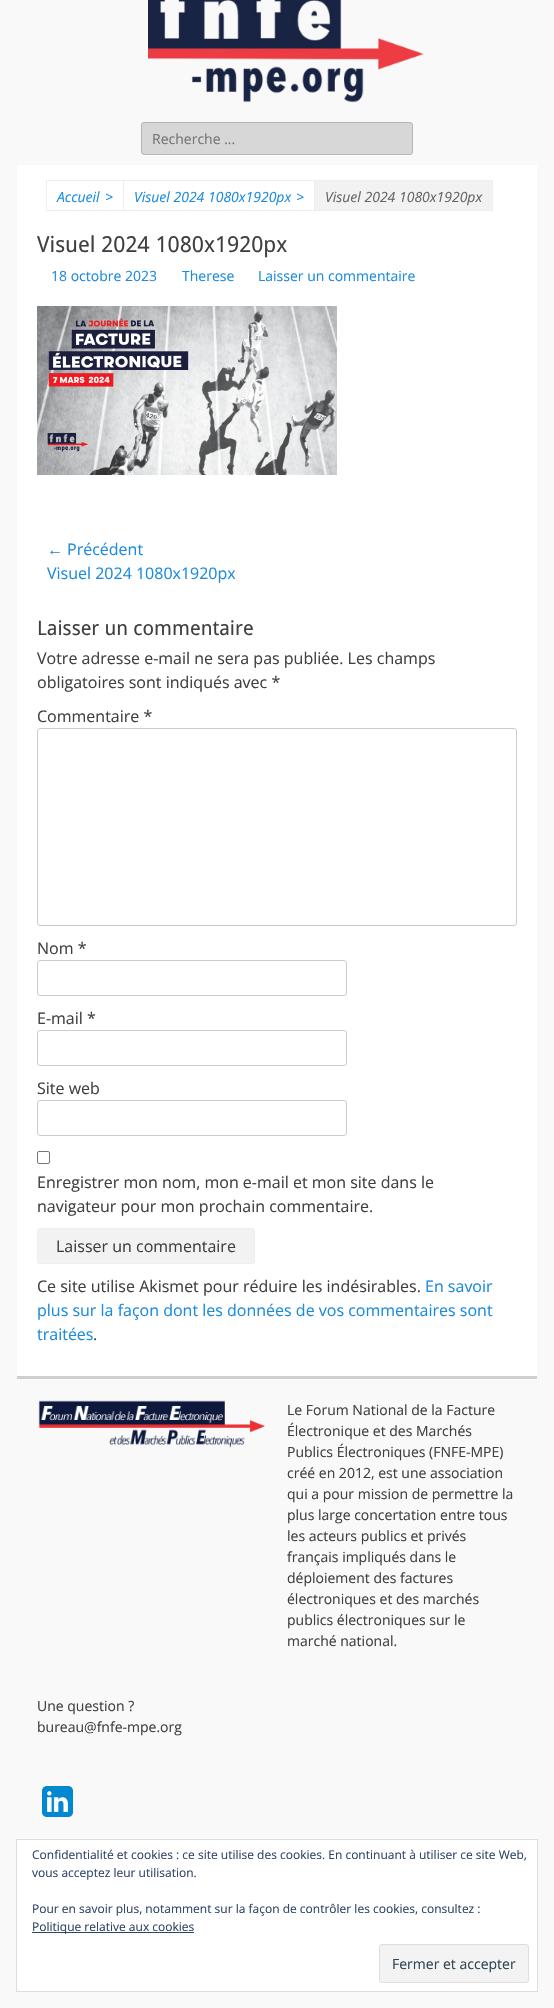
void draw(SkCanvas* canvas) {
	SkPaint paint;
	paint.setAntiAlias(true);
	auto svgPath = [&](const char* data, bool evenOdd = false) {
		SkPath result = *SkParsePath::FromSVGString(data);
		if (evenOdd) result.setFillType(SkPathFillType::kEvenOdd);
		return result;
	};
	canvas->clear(0xfff9f9f9);
	canvas->drawImageRect(SkImages::DeferredFromEncodedData(SkData::MakeFromFileName("img1.png")), SkRect::MakeXYWH(148, 0, 276, 103), SkSamplingOptions());
	paint.setColor(0xffffffff);
	canvas->drawPath(svgPath("M141 152V153C141 155 142 156 144 156H410C412 156 413 155 413 153V152C413 154 412 155 410 155H144C142 155 141 154 141 152Z"), paint);
	paint.setColor(0xffd7d7d7);
	canvas->drawRoundRect(SkRect::MakeXYWH(141.5, 122.5, 271, 32), 2.5, 2.5, paint);
	paint.setStroke(true);
	paint.setStrokeWidth(1);
	paint.setColor(0xffb6b6b6);
	canvas->drawRoundRect(SkRect::MakeXYWH(141.5, 122.5, 271, 32), 2.5, 2.5, paint);
	SkFont f1(fontMgr->matchFamilyStyle("Open Sans", SkFontStyle::Normal()), 14);
	f1.setSubpixel(true);
	paint.setStroke(false);
	paint.setColor(0xff757575);
	canvas->drawString("Recherche ...", 152, 144, f1, paint);
	paint.setColor(0xffffffff);
	canvas->drawRect(SkRect::MakeXYWH(17, 165, 520, 1211), paint);
	paint.setStroke(true);
	paint.setColor(0xffeeeeee);
	canvas->drawRect(SkRect::MakeXYWH(46.5, 180.5, 77, 30), paint);
	SkFont f2(fontMgr->matchFamilyStyle("Open Sans", SkFontStyle::Italic()), 14);
	f2.setSubpixel(true);
	paint.setStroke(false);
	paint.setColor(0xff1b8be0);
	canvas->drawString("Accueil", 57, 202, f2, paint);
	canvas->drawString(">", 105, 202, f2, paint);
	paint.setStroke(true);
	paint.setColor(0xffeeeeee);
	canvas->drawRect(SkRect::MakeXYWH(123.5, 180.5, 191, 30), paint);
	paint.setStroke(false);
	paint.setColor(0xff1b8be0);
	canvas->drawString("Visuel 2024 1080x1920px", 134, 202, f2, paint);
	canvas->drawString(">", 296, 202, f2, paint);
	paint.setColor(0xfff2f2f2);
	canvas->drawRect(SkRect::MakeXYWH(314.5, 180.5, 178, 30), paint);
	paint.setStroke(true);
	paint.setColor(0xffeeeeee);
	canvas->drawRect(SkRect::MakeXYWH(314.5, 180.5, 178, 30), paint);
	paint.setStroke(false);
	paint.setColor(0xff666666);
	canvas->drawString("Visuel 2024 1080x1920px", 325, 202, f2, paint);
	SkFont f3(fontMgr->matchFamilyStyle("Droid Sans", SkFontStyle::Normal()), 22);
	f3.setSubpixel(true);
	paint.setColor(0xff404040);
	canvas->drawString("Visuel 2024 1080x1920px", 37, 252, f3, paint);
	paint.setColor(0xff1b8be0);
	canvas->drawString("18 octobre 2023", 51, 281, f1, paint);
	canvas->drawString("Therese", 182, 281, f1, paint);
	canvas->drawString("Laisser un commentaire", 258, 281, f1, paint);
	canvas->drawImageRect(SkImages::DeferredFromEncodedData(SkData::MakeFromFileName("img2.png")), SkRect::MakeXYWH(37, 306, 300, 169), SkSamplingOptions());
	SkFont f4(fontMgr->matchFamilyStyle("Liberation Sans", SkFontStyle::Normal()), 16);
	f4.setSubpixel(true);
	canvas->drawString("←", 47, 555, f4, paint);
	SkFont f5(fontMgr->matchFamilyStyle("Open Sans", SkFontStyle::Normal()), 16);
	f5.setSubpixel(true);
	canvas->drawString("Précédent", 67, 555, f5, paint);
	canvas->drawString("Visuel 2024 1080x1920px", 47, 579, f5, paint);
	SkFont f6(fontMgr->matchFamilyStyle("Droid Sans", SkFontStyle::Normal()), 20);
	f6.setSubpixel(true);
	paint.setColor(0xff404040);
	canvas->drawString("Laisser un commentaire", 37, 635, f6, paint);
	canvas->drawString("Votre adresse e-mail ne sera pas publiée. Les champs", 37, 664, f5, paint);
	canvas->drawString("obligatoires sont indiqués avec *", 37, 688, f5, paint);
	canvas->drawString("Commentaire *", 37, 722, f5, paint);
	paint.setStroke(true);
	paint.setColor(0xffcccccc);
	canvas->drawRoundRect(SkRect::MakeXYWH(37.5, 728.5, 479, 197), 2.5, 2.5, paint);
	paint.setStroke(false);
	paint.setColor(0xff404040);
	canvas->drawString("Nom *", 37, 954, f5, paint);
	paint.setStroke(true);
	paint.setColor(0xffcccccc);
	canvas->drawRoundRect(SkRect::MakeXYWH(37.5, 960.5, 309, 35), 2.5, 2.5, paint);
	paint.setStroke(false);
	paint.setColor(0xff404040);
	canvas->drawString("E-mail *", 37, 1024, f5, paint);
	paint.setStroke(true);
	paint.setColor(0xffcccccc);
	canvas->drawRoundRect(SkRect::MakeXYWH(37.5, 1030.5, 309, 35), 2.5, 2.5, paint);
	paint.setStroke(false);
	paint.setColor(0xff404040);
	canvas->drawString("Site web", 37, 1094, f5, paint);
	paint.setStroke(true);
	paint.setColor(0xffcccccc);
	canvas->drawRoundRect(SkRect::MakeXYWH(37.5, 1100.5, 309, 35), 2.5, 2.5, paint);
	paint.setColor(0xff767676);
	canvas->drawRoundRect(SkRect::MakeXYWH(37.5, 1151.5, 12, 12), 1.5, 1.5, paint);
	paint.setStroke(false);
	paint.setColor(0xff404040);
	canvas->drawString("Enregistrer mon nom, mon e-mail et mon site dans le", 37, 1188, f5, paint);
	canvas->drawString("navigateur pour mon prochain commentaire.", 37, 1212, f5, paint);
	paint.setColor(0xfff2f2f2);
	canvas->drawRoundRect(SkRect::MakeXYWH(37.5, 1228.5, 217, 35), 2.5, 2.5, paint);
	paint.setStroke(true);
	paint.setColor(0xffeeeeee);
	canvas->drawRoundRect(SkRect::MakeXYWH(37.5, 1228.5, 217, 35), 2.5, 2.5, paint);
	paint.setStroke(false);
	paint.setColor(0xff404040);
	canvas->drawString("Laisser un commentaire", 56, 1252, f5, paint);
	canvas->drawString("Ce site utilise Akismet pour réduire les indésirables.", 37, 1292, f5, paint);
	paint.setColor(0xff1b8be0);
	canvas->drawString("En savoir", 425, 1292, f5, paint);
	canvas->drawString("plus sur la façon dont les données de vos commentaires sont", 37, 1316, f5, paint);
	canvas->drawString("traitées", 37, 1340, f5, paint);
	paint.setColor(0xff404040);
	canvas->drawString(".", 93, 1340, f5, paint);
	paint.setColor(0xffcfcfcf);
	canvas->drawRect(SkRect::MakeXYWH(17, 1376, 520, 3), paint);
	canvas->drawImageRect(SkImages::DeferredFromEncodedData(SkData::MakeFromFileName("img3.png")), SkRect::MakeXYWH(38, 1400, 227, 48), SkSamplingOptions());
	paint.setColor(0xff404040);
	canvas->drawString("Le Forum National de la Facture", 287, 1415, f1, paint);
	canvas->drawString("Électronique et des Marchés", 287, 1436, f1, paint);
	canvas->drawString("Publics Électroniques (FNFE-MPE)", 287, 1457, f1, paint);
	canvas->drawString("créé en 2012, est une association", 287, 1478, f1, paint);
	canvas->drawString("qui a pour mission de permettre la", 287, 1499, f1, paint);
	canvas->drawString("plus large concertation entre tous", 287, 1520, f1, paint);
	canvas->drawString("les acteurs publics et privés", 287, 1541, f1, paint);
	canvas->drawString("français impliqués dans le", 287, 1562, f1, paint);
	canvas->drawString("déploiement des factures", 287, 1583, f1, paint);
	canvas->drawString("électroniques et des marchés", 287, 1604, f1, paint);
	canvas->drawString("publics électroniques sur le", 287, 1625, f1, paint);
	canvas->drawString("marché national.", 287, 1646, f1, paint);
	canvas->drawString("Une question ?", 37, 1711, f1, paint);
	canvas->drawString("bureau@fnfe-mpe.org", 37, 1732, f1, paint);
	canvas->drawImageRect(SkImages::DeferredFromEncodedData(SkData::MakeFromFileName("img4.png")), SkRect::MakeXYWH(42, 1786, 31, 31), SkSamplingOptions());
	paint.setColor(0xffffffff);
	canvas->drawRect(SkRect::MakeXYWH(16.5, 1839.5, 521, 152), paint);
	paint.setStroke(true);
	paint.setColor(0xffdedede);
	canvas->drawRect(SkRect::MakeXYWH(16.5, 1839.5, 521, 152), paint);
	SkFont f7(fontMgr->matchFamilyStyle("Open Sans", SkFontStyle::Normal()), 12);
	f7.setSubpixel(true);
	paint.setStroke(false);
	paint.setColor(0xff2e4467);
	canvas->drawString("Confidentialité et cookies : ce site utilise des cookies. En continuant à utiliser ce site Web,", 32, 1859, f7, paint);
	canvas->drawString("vous acceptez leur utilisation.", 32, 1877, f7, paint);
	canvas->drawString("Pour en savoir plus, notamment sur la façon de contrôler les cookies, consultez :", 32, 1913, f7, paint);
	canvas->drawRect(SkRect::MakeXYWH(32, 1932, 162, 1), paint);
	canvas->drawString("Politique relative aux cookies", 32, 1931, f7, paint);
	paint.setColor(0xfff3f3f3);
	canvas->drawRoundRect(SkRect::MakeXYWH(379.5, 1944.5, 149, 38), 2.5, 2.5, paint);
	paint.setStroke(true);
	paint.setColor(0xffdedede);
	canvas->drawRoundRect(SkRect::MakeXYWH(379.5, 1944.5, 149, 38), 2.5, 2.5, paint);
	paint.setStroke(false);
	paint.setColor(0xff2e4453);
	canvas->drawString("Fermer et accepter", 392, 1969, f1, paint);
}
